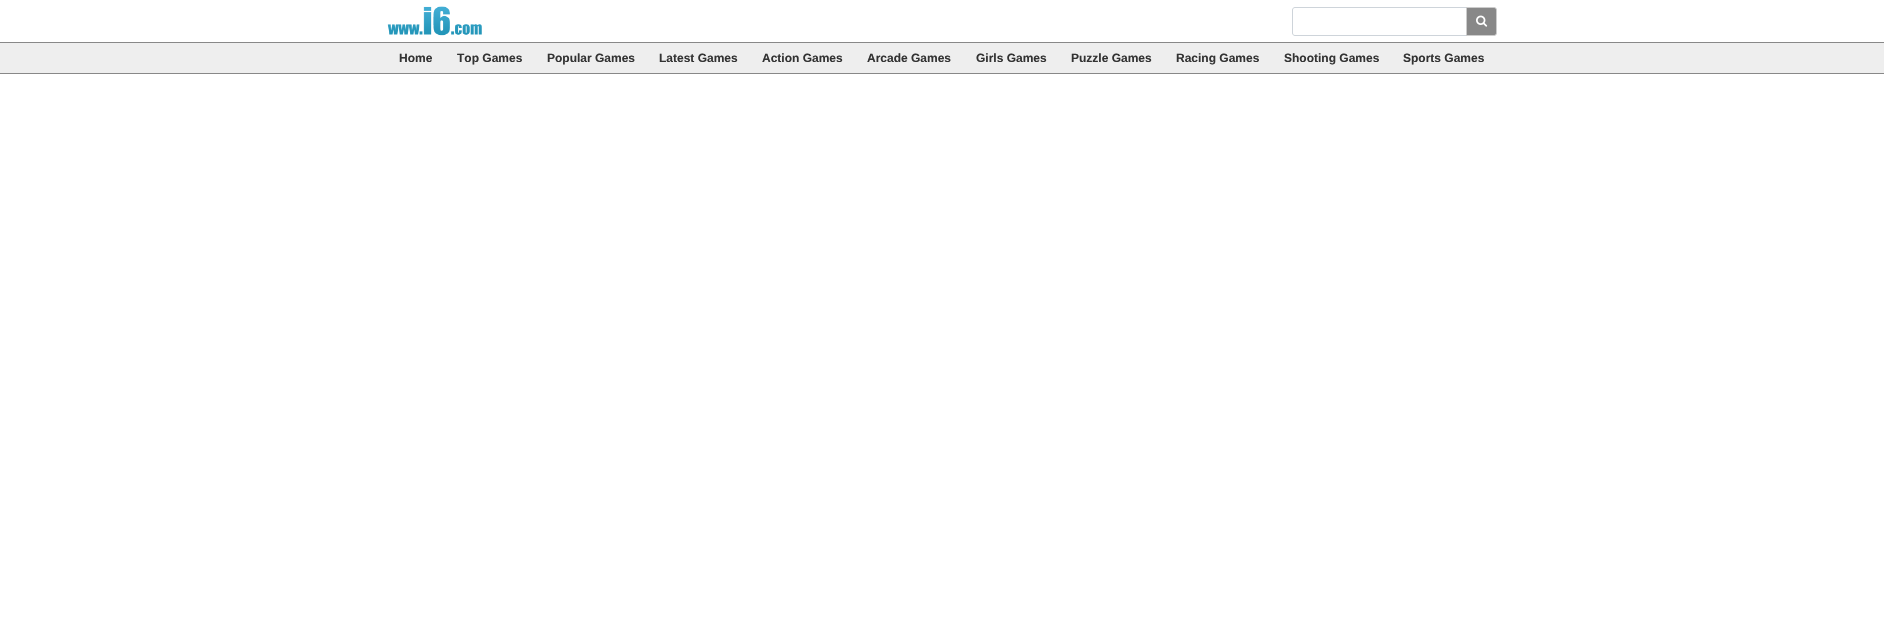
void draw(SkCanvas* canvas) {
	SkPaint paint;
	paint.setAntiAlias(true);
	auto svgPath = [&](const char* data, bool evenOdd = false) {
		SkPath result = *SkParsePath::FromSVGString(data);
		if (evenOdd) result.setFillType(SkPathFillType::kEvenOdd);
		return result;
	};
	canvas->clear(0xffffffff);
	canvas->drawImageRect(SkImages::DeferredFromEncodedData(SkData::MakeFromFileName("img1.png")), SkRect::MakeXYWH(387, 6, 95, 30), SkSamplingOptions());
	paint.setStroke(true);
	paint.setStrokeWidth(1);
	paint.setColor(0xffced4da);
	canvas->drawPath(svgPath("M1295 7.5H1466.5V35.5H1295C1293.5 35.5 1292.5 34.5 1292.5 33V10C1292.5 8.5 1293.5 7.5 1295 7.5Z"), paint);
	paint.setStroke(false);
	paint.setColor(0xff888888);
	canvas->drawPath(svgPath("M1466.5 7.5H1494C1495.5 7.5 1496.5 8.5 1496.5 10V33C1496.5 34.5 1495.5 35.5 1494 35.5H1466.5Z"), paint);
	paint.setStroke(true);
	paint.setColor(0xffcccccc);
	canvas->drawPath(svgPath("M1466.5 7.5H1494C1495.5 7.5 1496.5 8.5 1496.5 10V33C1496.5 34.5 1495.5 35.5 1494 35.5H1466.5Z"), paint);
	canvas->drawImageRect(SkImages::DeferredFromEncodedData(SkData::MakeFromFileName("img2.png")), SkRect::MakeXYWH(1476, 15, 12, 12), SkSamplingOptions());
	paint.setStroke(false);
	paint.setColor(0xffeeeeee);
	canvas->drawRect(SkRect::MakeXYWH(0, 43, 1884, 30), paint);
	paint.setColor(0xff888888);
	canvas->drawRect(SkRect::MakeXYWH(0, 42, 1884, 1), paint);
	canvas->drawRect(SkRect::MakeXYWH(0, 73, 1884, 1), paint);
	SkFont f1(fontMgr->matchFamilyStyle("Liberation Sans", SkFontStyle::Bold()), 12);
	f1.setSubpixel(true);
	paint.setColor(0xff333333);
	canvas->drawString("Home", 399, 62, f1, paint);
	canvas->drawString("Top Games", 457, 62, f1, paint);
	canvas->drawString("Popular Games", 547, 62, f1, paint);
	canvas->drawString("Latest Games", 659, 62, f1, paint);
	canvas->drawString("Action Games", 762, 62, f1, paint);
	canvas->drawString("Arcade Games", 867, 62, f1, paint);
	canvas->drawString("Girls Games", 976, 62, f1, paint);
	canvas->drawString("Puzzle Games", 1071, 62, f1, paint);
	canvas->drawString("Racing Games", 1176, 62, f1, paint);
	canvas->drawString("Shooting Games", 1284, 62, f1, paint);
	canvas->drawString("Sports Games", 1403, 62, f1, paint);
}
